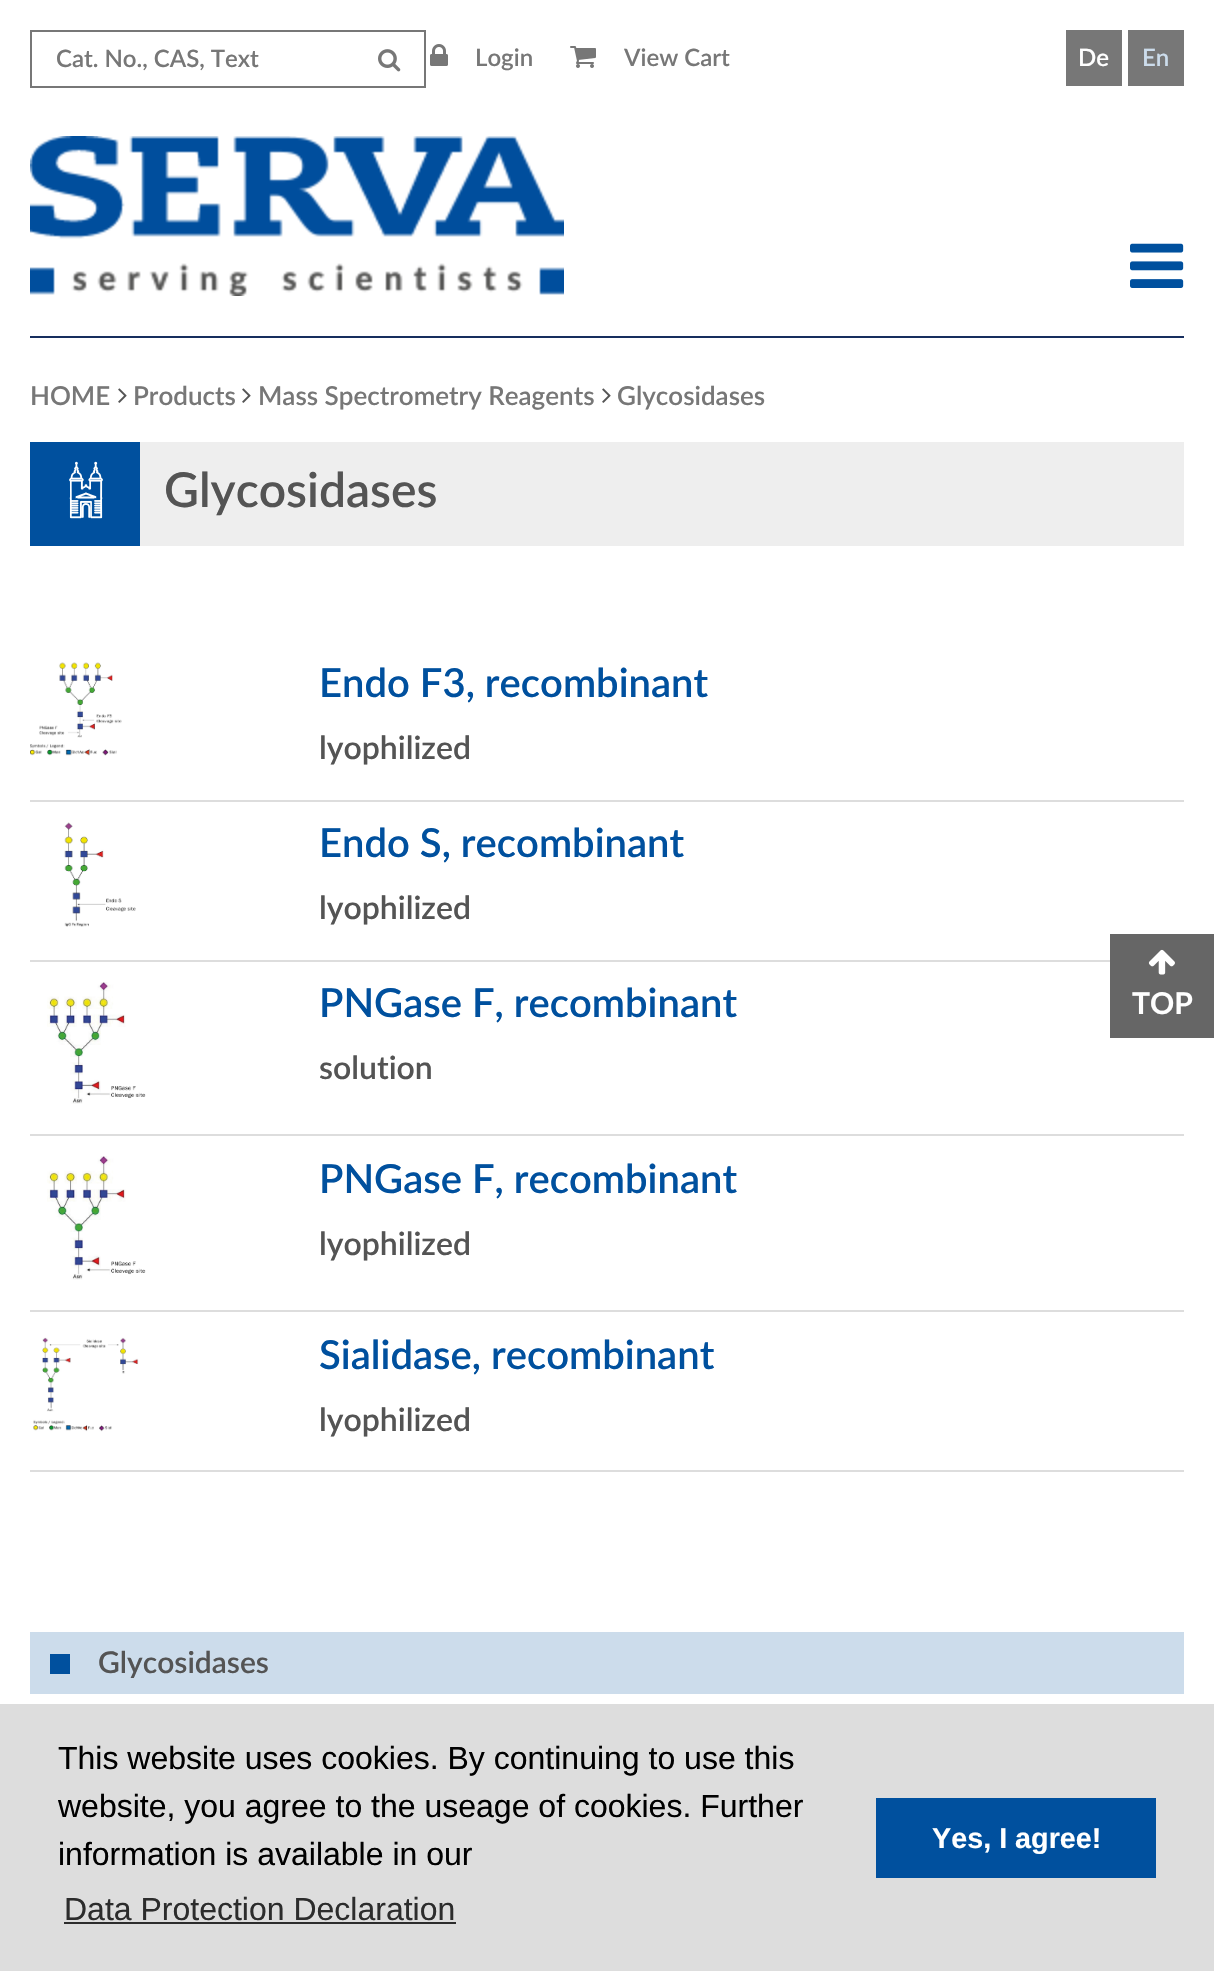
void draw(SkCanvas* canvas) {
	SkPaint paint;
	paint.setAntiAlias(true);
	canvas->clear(0xffffffff);
	paint.setColor(0xff162e5e);
	canvas->drawRect(SkRect::MakeXYWH(30, 336, 1154, 2), paint);
	paint.setStroke(true);
	paint.setStrokeWidth(2);
	paint.setColor(0xff777777);
	canvas->drawRect(SkRect::MakeXYWH(31, 31, 394, 56), paint);
	SkFont f1(fontMgr->matchFamilyStyle("Lato", SkFontStyle(600, SkFontStyle::kNormal_Width, SkFontStyle::kUpright_Slant)), 24);
	f1.setSubpixel(true);
	paint.setStroke(false);
	canvas->drawString("Cat. No., CAS, Text", 56, 67, f1, paint);
	canvas->drawImageRect(SkImages::DeferredFromEncodedData(SkData::MakeFromFileName("img1.png")), SkRect::MakeXYWH(378, 49, 23, 23), SkSamplingOptions());
	canvas->drawImageRect(SkImages::DeferredFromEncodedData(SkData::MakeFromFileName("img2.png")), SkRect::MakeXYWH(430, 44, 18, 22), SkSamplingOptions());
	canvas->drawString("Login", 475, 66, f1, paint);
	canvas->drawImageRect(SkImages::DeferredFromEncodedData(SkData::MakeFromFileName("img3.png")), SkRect::MakeXYWH(570, 46, 26, 22), SkSamplingOptions());
	canvas->drawString("View Cart", 624, 66, f1, paint);
	canvas->drawRect(SkRect::MakeXYWH(1066, 30, 56, 56), paint);
	paint.setColor(0xffffffff);
	canvas->drawString("De", 1078, 66, f1, paint);
	paint.setColor(0xff777777);
	canvas->drawRect(SkRect::MakeXYWH(1128, 30, 56, 56), paint);
	paint.setColor(0xffccdceb);
	canvas->drawString("En", 1142, 66, f1, paint);
	canvas->drawImageRect(SkImages::DeferredFromEncodedData(SkData::MakeFromFileName("img4.png")), SkRect::MakeXYWH(30, 136, 534, 160), SkSamplingOptions());
	canvas->drawImageRect(SkImages::DeferredFromEncodedData(SkData::MakeFromFileName("img5.png")), SkRect::MakeXYWH(1130, 243, 54, 45), SkSamplingOptions());
	SkFont f2(fontMgr->matchFamilyStyle("Lato", SkFontStyle(600, SkFontStyle::kNormal_Width, SkFontStyle::kUpright_Slant)), 26);
	f2.setSubpixel(true);
	paint.setColor(0xff777777);
	canvas->drawString("HOME", 30, 405, f2, paint);
	canvas->drawImageRect(SkImages::DeferredFromEncodedData(SkData::MakeFromFileName("img6.png")), SkRect::MakeXYWH(118, 388, 9, 15), SkSamplingOptions());
	canvas->drawString("Products", 133, 405, f2, paint);
	canvas->drawImageRect(SkImages::DeferredFromEncodedData(SkData::MakeFromFileName("img6.png")), SkRect::MakeXYWH(242, 388, 9, 15), SkSamplingOptions());
	canvas->drawString("Mass Spectrometry Reagents", 258, 405, f2, paint);
	canvas->drawImageRect(SkImages::DeferredFromEncodedData(SkData::MakeFromFileName("img6.png")), SkRect::MakeXYWH(602, 388, 9, 15), SkSamplingOptions());
	canvas->drawString("Glycosidases", 617, 405, f2, paint);
	paint.setColor(0xffeeeeee);
	canvas->drawRect(SkRect::MakeXYWH(140, 442, 1044, 104), paint);
	paint.setColor(0xff00509e);
	canvas->drawRect(SkRect::MakeXYWH(30, 442, 110, 104), paint);
	canvas->drawImageRect(SkImages::DeferredFromEncodedData(SkData::MakeFromFileName("img7.png")), SkRect::MakeXYWH(69, 461, 34, 58), SkSamplingOptions());
	SkFont f3(fontMgr->matchFamilyStyle("Lato", SkFontStyle(600, SkFontStyle::kNormal_Width, SkFontStyle::kUpright_Slant)), 48);
	f3.setSubpixel(true);
	paint.setColor(0xff545454);
	canvas->drawString("Glycosidases", 164, 507, f3, paint);
	paint.setColor(0xffdddddd);
	canvas->drawRect(SkRect::MakeXYWH(30, 800, 1154, 2), paint);
	canvas->drawImageRect(SkImages::DeferredFromEncodedData(SkData::MakeFromFileName("img8.png")), SkRect::MakeXYWH(30, 662, 92, 94), SkSamplingOptions());
	SkFont f4(fontMgr->matchFamilyStyle("Lato", SkFontStyle(600, SkFontStyle::kNormal_Width, SkFontStyle::kUpright_Slant)), 40);
	f4.setSubpixel(true);
	paint.setColor(0xff00509e);
	canvas->drawString("Endo F3, recombinant", 319, 697, f4, paint);
	SkFont f5(fontMgr->matchFamilyStyle("Lato", SkFontStyle(600, SkFontStyle::kNormal_Width, SkFontStyle::kUpright_Slant)), 32);
	f5.setSubpixel(true);
	paint.setColor(0xff545454);
	canvas->drawString("lyophilized", 319, 759, f5, paint);
	paint.setColor(0xffdddddd);
	canvas->drawRect(SkRect::MakeXYWH(30, 960, 1080, 2), paint);
	canvas->drawImageRect(SkImages::DeferredFromEncodedData(SkData::MakeFromFileName("img9.png")), SkRect::MakeXYWH(64, 822, 72, 105), SkSamplingOptions());
	paint.setColor(0xff00509e);
	canvas->drawString("Endo S, recombinant", 319, 857, f4, paint);
	paint.setColor(0xff545454);
	canvas->drawString("lyophilized", 319, 919, f5, paint);
	paint.setColor(0xffdddddd);
	canvas->drawRect(SkRect::MakeXYWH(30, 1134, 1154, 2), paint);
	canvas->drawImageRect(SkImages::DeferredFromEncodedData(SkData::MakeFromFileName("img10.png")), SkRect::MakeXYWH(47, 982, 99, 122), SkSamplingOptions());
	paint.setColor(0xff00509e);
	canvas->drawString("PNGase F, recombinant", 319, 1017, f4, paint);
	paint.setColor(0xff545454);
	canvas->drawString("solution", 319, 1079, f5, paint);
	paint.setColor(0xffdddddd);
	canvas->drawRect(SkRect::MakeXYWH(30, 1310, 1154, 2), paint);
	canvas->drawImageRect(SkImages::DeferredFromEncodedData(SkData::MakeFromFileName("img11.png")), SkRect::MakeXYWH(47, 1156, 99, 124), SkSamplingOptions());
	paint.setColor(0xff00509e);
	canvas->drawString("PNGase F, recombinant", 319, 1193, f4, paint);
	paint.setColor(0xff545454);
	canvas->drawString("lyophilized", 319, 1255, f5, paint);
	paint.setColor(0xffdddddd);
	canvas->drawRect(SkRect::MakeXYWH(30, 1470, 1154, 2), paint);
	canvas->drawImageRect(SkImages::DeferredFromEncodedData(SkData::MakeFromFileName("img12.png")), SkRect::MakeXYWH(33, 1337, 106, 95), SkSamplingOptions());
	paint.setColor(0xff00509e);
	canvas->drawString("Sialidase, recombinant", 319, 1369, f4, paint);
	paint.setColor(0xff545454);
	canvas->drawString("lyophilized", 319, 1431, f5, paint);
	paint.setColor(0xffccdceb);
	canvas->drawRect(SkRect::MakeXYWH(30, 1632, 1154, 62), paint);
	paint.setColor(0xff00509e);
	canvas->drawRect(SkRect::MakeXYWH(50, 1654, 20, 20), paint);
	SkFont f6(fontMgr->matchFamilyStyle("Lato", SkFontStyle(600, SkFontStyle::kNormal_Width, SkFontStyle::kUpright_Slant)), 30);
	f6.setSubpixel(true);
	paint.setColor(0xff545454);
	canvas->drawString("Glycosidases", 98, 1673, f6, paint);
	paint.setColor(0xff666666);
	canvas->drawRect(SkRect::MakeXYWH(1110, 934, 104, 104), paint);
	canvas->drawImageRect(SkImages::DeferredFromEncodedData(SkData::MakeFromFileName("img13.png")), SkRect::MakeXYWH(1148, 949, 27, 26), SkSamplingOptions());
	SkFont f7(fontMgr->matchFamilyStyle("Lato", SkFontStyle::Bold()), 30);
	f7.setSubpixel(true);
	paint.setColor(0xffffffff);
	canvas->drawString("TOP", 1132, 1014, f7, paint);
	paint.setColor(0xffdddddd);
	canvas->drawRect(SkRect::MakeXYWH(0, 1704, 1214, 267), paint);
	SkFont f8(fontMgr->matchFamilyStyle("Liberation Sans", SkFontStyle::Normal()), 32);
	f8.setSubpixel(true);
	paint.setColor(0xff000000);
	canvas->drawString("This website uses cookies. By continuing to use this", 58, 1769, f8, paint);
	canvas->drawString("website, you agree to the useage of cookies. Further", 58, 1817, f8, paint);
	canvas->drawString("information is available in our", 58, 1865, f8, paint);
	paint.setColor(0xff2c2c2c);
	canvas->drawString("Data Protection Declaration", 64, 1920, f8, paint);
	canvas->drawRect(SkRect::MakeXYWH(64, 1922, 392, 2), paint);
	paint.setColor(0xff00509e);
	canvas->drawRect(SkRect::MakeXYWH(876, 1798, 280, 80), paint);
	SkFont f9(fontMgr->matchFamilyStyle("Liberation Sans", SkFontStyle::Bold()), 28.75);
	f9.setSubpixel(true);
	paint.setColor(0xffffffff);
	canvas->drawString("Yes, I agree!", 932, 1848, f9, paint);
}
